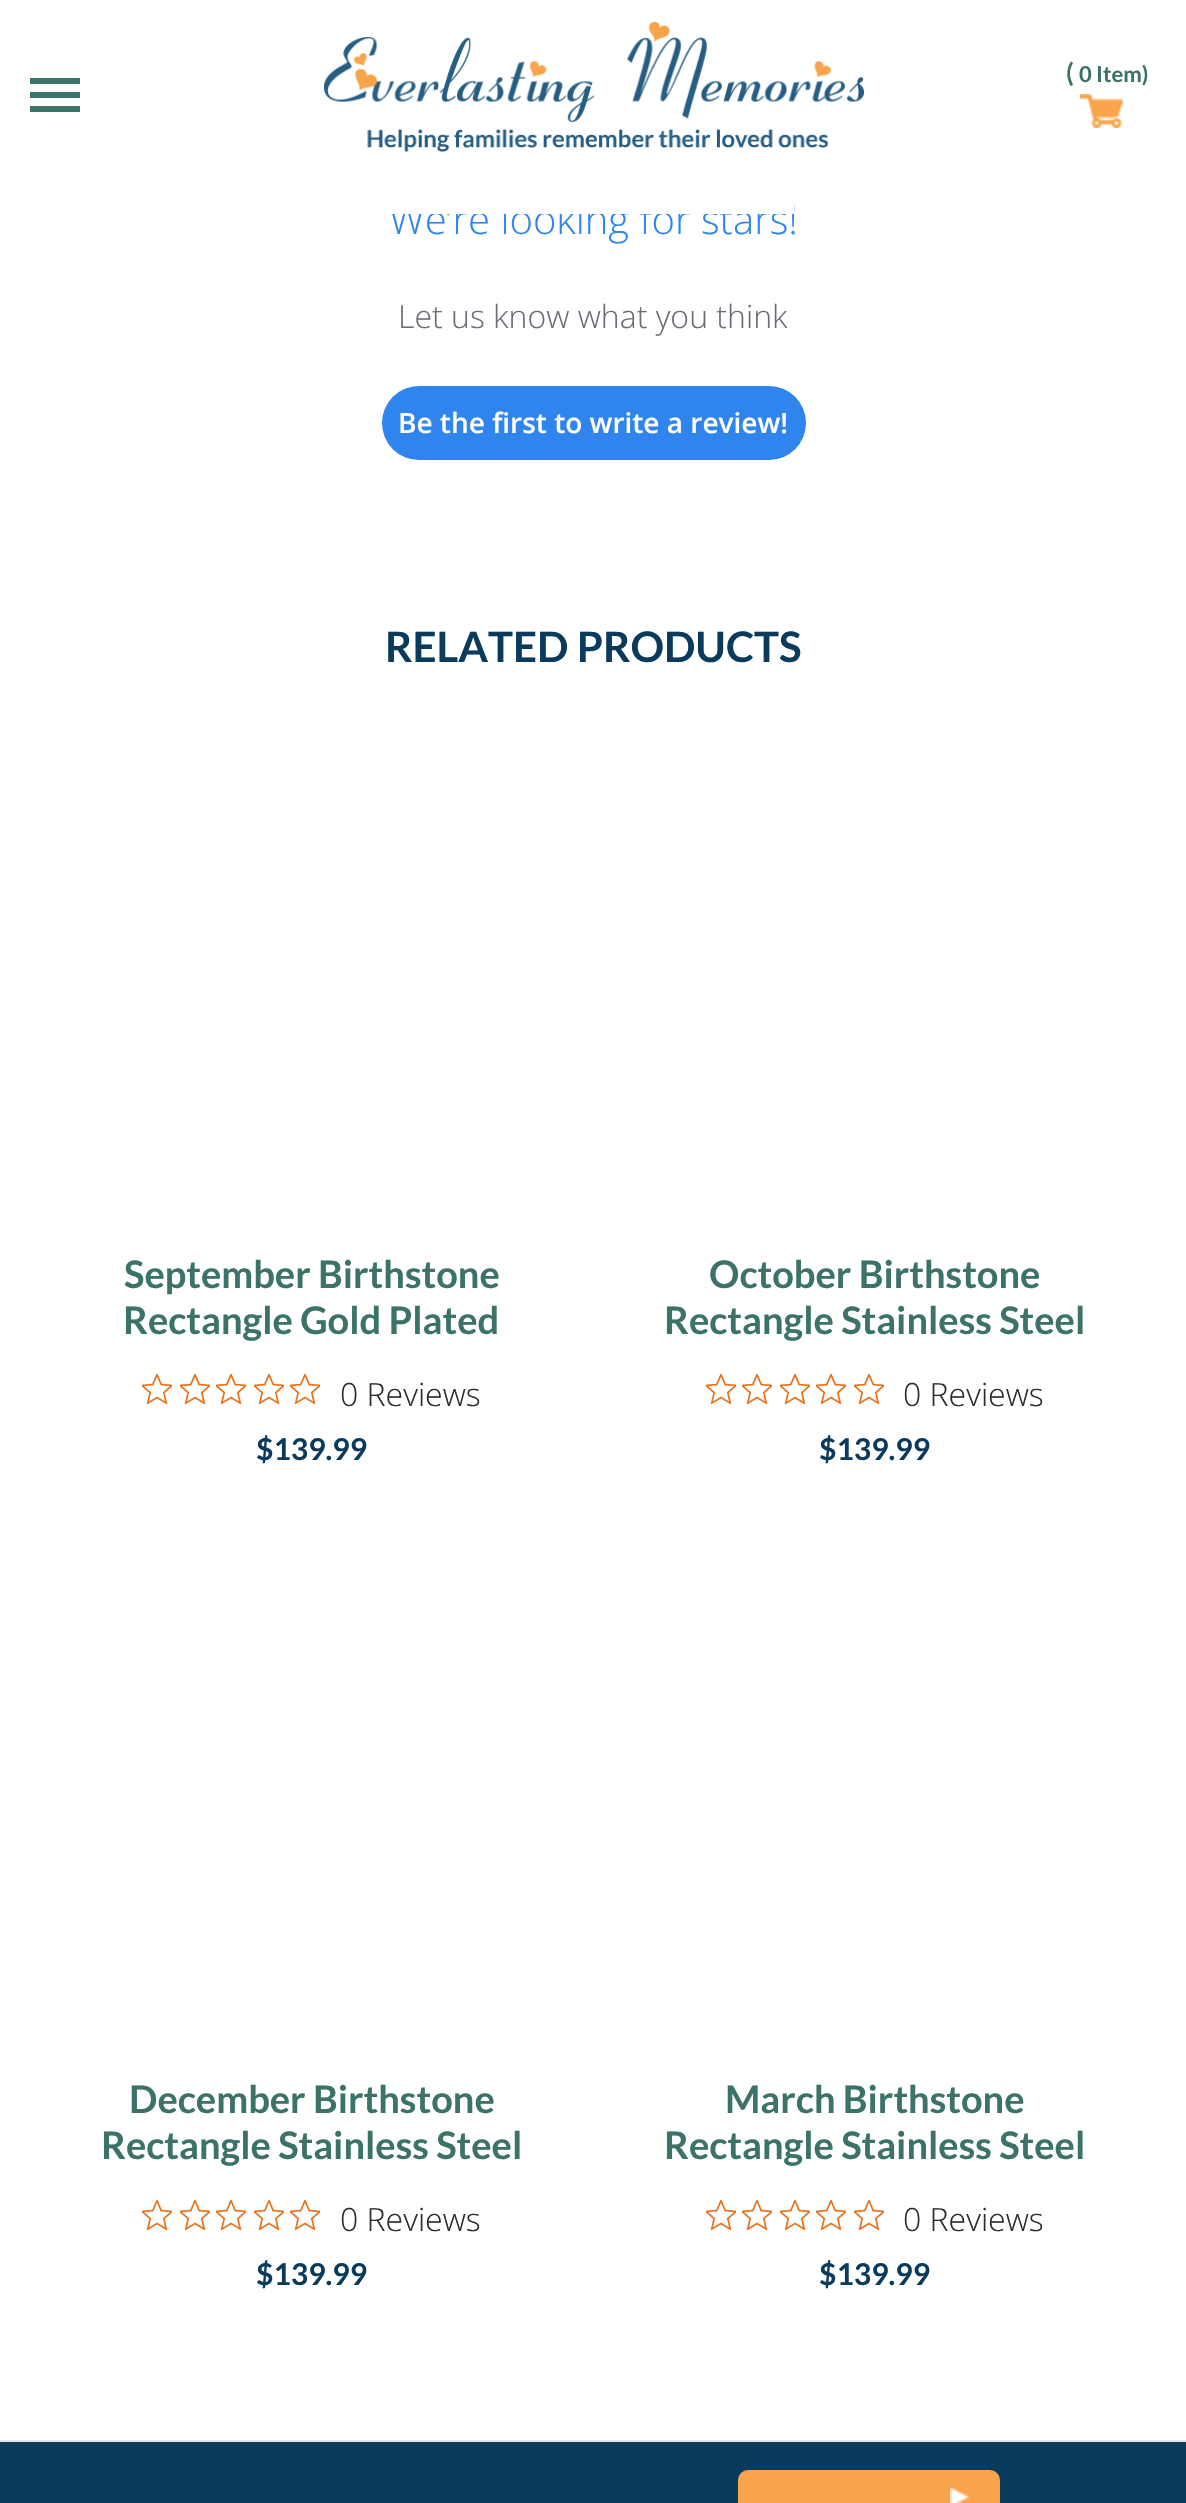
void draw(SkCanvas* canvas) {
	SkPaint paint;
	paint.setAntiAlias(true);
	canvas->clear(0xffffffff);
	SkFont f1(fontMgr->matchFamilyStyle("Open Sans", SkFontStyle(300, SkFontStyle::kNormal_Width, SkFontStyle::kUpright_Slant)), 40);
	f1.setSubpixel(true);
	paint.setColor(0xff2f84ed);
	canvas->drawString("We’re looking for stars!", 389, 234, f1, paint);
	paint.setColor(0xffffffff);
	canvas->drawRect(SkRect::MakeXYWH(389, 203, 405, 11), paint);
	canvas->drawImageRect(SkImages::DeferredFromEncodedData(SkData::MakeFromFileName("img1.png")), SkRect::MakeXYWH(324, 22, 540, 130), SkSamplingOptions());
	canvas->drawImageRect(SkImages::DeferredFromEncodedData(SkData::MakeFromFileName("img2.png")), SkRect::MakeXYWH(1080, 94, 44, 34), SkSamplingOptions());
	SkFont f2(fontMgr->matchFamilyStyle("Lato", SkFontStyle::Bold()), 26);
	f2.setSubpixel(true);
	paint.setColor(0xff3c7369);
	canvas->drawString("(", 1066, 82, f2, paint);
	paint.setColor(0xffffffff);
	canvas->drawCircle(1085, 73, 15, paint);
	SkFont f3(fontMgr->matchFamilyStyle("Lato", SkFontStyle::Bold()), 22);
	f3.setSubpixel(true);
	paint.setColor(0xff3c7369);
	canvas->drawString("0", 1079, 82, f3, paint);
	canvas->drawString("Item)", 1096, 82, f3, paint);
	canvas->drawRect(SkRect::MakeXYWH(30, 92, 50, 6), paint);
	canvas->drawRect(SkRect::MakeXYWH(30, 78, 50, 6), paint);
	canvas->drawRect(SkRect::MakeXYWH(30, 106, 50, 6), paint);
	SkFont f4(fontMgr->matchFamilyStyle("Open Sans", SkFontStyle(300, SkFontStyle::kNormal_Width, SkFontStyle::kUpright_Slant)), 32);
	f4.setSubpixel(true);
	paint.setColor(0xff6b6d76);
	canvas->drawString("Let us know what you think", 398, 328, f4, paint);
	paint.setColor(0xff2f84ed);
	canvas->drawRoundRect(SkRect::MakeXYWH(382, 386, 424, 74), 37, 37, paint);
	SkFont f5(fontMgr->matchFamilyStyle("Open Sans", SkFontStyle(600, SkFontStyle::kNormal_Width, SkFontStyle::kUpright_Slant)), 28);
	f5.setSubpixel(true);
	paint.setColor(0xffffffff);
	canvas->drawString("Be the first to write a review!", 398, 433, f5, paint);
	SkFont f6(fontMgr->matchFamilyStyle("Lato", SkFontStyle::Bold()), 42);
	f6.setSubpixel(true);
	paint.setColor(0xff0a3b5c);
	canvas->drawString("RELATED PRODUCTS", 385, 662, f6, paint);
	SkFont f7(fontMgr->matchFamilyStyle("Lato", SkFontStyle::Bold()), 38);
	f7.setSubpixel(true);
	paint.setColor(0xff3c7369);
	canvas->drawString("September Birthstone", 124, 1288, f7, paint);
	canvas->drawString("Rectangle Gold Plated", 123, 1334, f7, paint);
	canvas->drawImageRect(SkImages::DeferredFromEncodedData(SkData::MakeFromFileName("img3.png")), SkRect::MakeXYWH(142, 1374, 30, 30), SkSamplingOptions());
	canvas->drawImageRect(SkImages::DeferredFromEncodedData(SkData::MakeFromFileName("img3.png")), SkRect::MakeXYWH(180, 1374, 30, 30), SkSamplingOptions());
	canvas->drawImageRect(SkImages::DeferredFromEncodedData(SkData::MakeFromFileName("img3.png")), SkRect::MakeXYWH(216, 1374, 30, 30), SkSamplingOptions());
	canvas->drawImageRect(SkImages::DeferredFromEncodedData(SkData::MakeFromFileName("img3.png")), SkRect::MakeXYWH(254, 1374, 30, 30), SkSamplingOptions());
	canvas->drawImageRect(SkImages::DeferredFromEncodedData(SkData::MakeFromFileName("img3.png")), SkRect::MakeXYWH(290, 1374, 30, 30), SkSamplingOptions());
	paint.setColor(0xff2c2c2c);
	canvas->drawString("0 Reviews", 340, 1406, f4, paint);
	SkFont f8(fontMgr->matchFamilyStyle("Lato", SkFontStyle::Bold()), 30);
	f8.setSubpixel(true);
	paint.setColor(0xff0a3b5c);
	canvas->drawString("$139.99", 256, 1460, f8, paint);
	paint.setColor(0xff3c7369);
	canvas->drawString("October Birthstone", 709, 1288, f7, paint);
	canvas->drawString("Rectangle Stainless Steel", 664, 1334, f7, paint);
	canvas->drawImageRect(SkImages::DeferredFromEncodedData(SkData::MakeFromFileName("img3.png")), SkRect::MakeXYWH(706, 1374, 30, 30), SkSamplingOptions());
	canvas->drawImageRect(SkImages::DeferredFromEncodedData(SkData::MakeFromFileName("img3.png")), SkRect::MakeXYWH(742, 1374, 30, 30), SkSamplingOptions());
	canvas->drawImageRect(SkImages::DeferredFromEncodedData(SkData::MakeFromFileName("img3.png")), SkRect::MakeXYWH(780, 1374, 30, 30), SkSamplingOptions());
	canvas->drawImageRect(SkImages::DeferredFromEncodedData(SkData::MakeFromFileName("img3.png")), SkRect::MakeXYWH(816, 1374, 30, 30), SkSamplingOptions());
	canvas->drawImageRect(SkImages::DeferredFromEncodedData(SkData::MakeFromFileName("img3.png")), SkRect::MakeXYWH(854, 1374, 30, 30), SkSamplingOptions());
	paint.setColor(0xff2c2c2c);
	canvas->drawString("0 Reviews", 903, 1406, f4, paint);
	paint.setColor(0xff0a3b5c);
	canvas->drawString("$139.99", 819, 1460, f8, paint);
	paint.setColor(0xff3c7369);
	canvas->drawString("December Birthstone", 129, 2113, f7, paint);
	canvas->drawString("Rectangle Stainless Steel", 101, 2159, f7, paint);
	canvas->drawImageRect(SkImages::DeferredFromEncodedData(SkData::MakeFromFileName("img3.png")), SkRect::MakeXYWH(142, 2200, 30, 30), SkSamplingOptions());
	canvas->drawImageRect(SkImages::DeferredFromEncodedData(SkData::MakeFromFileName("img3.png")), SkRect::MakeXYWH(180, 2200, 30, 30), SkSamplingOptions());
	canvas->drawImageRect(SkImages::DeferredFromEncodedData(SkData::MakeFromFileName("img3.png")), SkRect::MakeXYWH(216, 2200, 30, 30), SkSamplingOptions());
	canvas->drawImageRect(SkImages::DeferredFromEncodedData(SkData::MakeFromFileName("img3.png")), SkRect::MakeXYWH(254, 2200, 30, 30), SkSamplingOptions());
	canvas->drawImageRect(SkImages::DeferredFromEncodedData(SkData::MakeFromFileName("img3.png")), SkRect::MakeXYWH(290, 2200, 30, 30), SkSamplingOptions());
	paint.setColor(0xff2c2c2c);
	canvas->drawString("0 Reviews", 340, 2231, f4, paint);
	paint.setColor(0xff0a3b5c);
	canvas->drawString("$139.99", 256, 2285, f8, paint);
	paint.setColor(0xff3c7369);
	canvas->drawString("March Birthstone", 725, 2113, f7, paint);
	canvas->drawString("Rectangle Stainless Steel", 664, 2159, f7, paint);
	canvas->drawImageRect(SkImages::DeferredFromEncodedData(SkData::MakeFromFileName("img3.png")), SkRect::MakeXYWH(706, 2200, 30, 30), SkSamplingOptions());
	canvas->drawImageRect(SkImages::DeferredFromEncodedData(SkData::MakeFromFileName("img3.png")), SkRect::MakeXYWH(742, 2200, 30, 30), SkSamplingOptions());
	canvas->drawImageRect(SkImages::DeferredFromEncodedData(SkData::MakeFromFileName("img3.png")), SkRect::MakeXYWH(780, 2200, 30, 30), SkSamplingOptions());
	canvas->drawImageRect(SkImages::DeferredFromEncodedData(SkData::MakeFromFileName("img3.png")), SkRect::MakeXYWH(816, 2200, 30, 30), SkSamplingOptions());
	canvas->drawImageRect(SkImages::DeferredFromEncodedData(SkData::MakeFromFileName("img3.png")), SkRect::MakeXYWH(854, 2200, 30, 30), SkSamplingOptions());
	paint.setColor(0xff2c2c2c);
	canvas->drawString("0 Reviews", 903, 2231, f4, paint);
	paint.setColor(0xff0a3b5c);
	canvas->drawString("$139.99", 819, 2285, f8, paint);
	paint.setColor(0xffe5e5e5);
	canvas->drawRect(SkRect::MakeXYWH(0, 2440, 1186, 2), paint);
	paint.setColor(0xff0a3b5c);
	canvas->drawRect(SkRect::MakeXYWH(0, 2442, 1186, 61), paint);
	paint.setColor(0xfff8a44a);
	canvas->drawRoundRect(SkRect::MakeXYWH(738, 2470, 262, 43), 10, 10, paint);
	canvas->drawImageRect(SkImages::DeferredFromEncodedData(SkData::MakeFromFileName("img4.png")), SkRect::MakeXYWH(950, 2488, 20, 15), SkSamplingOptions());
}
